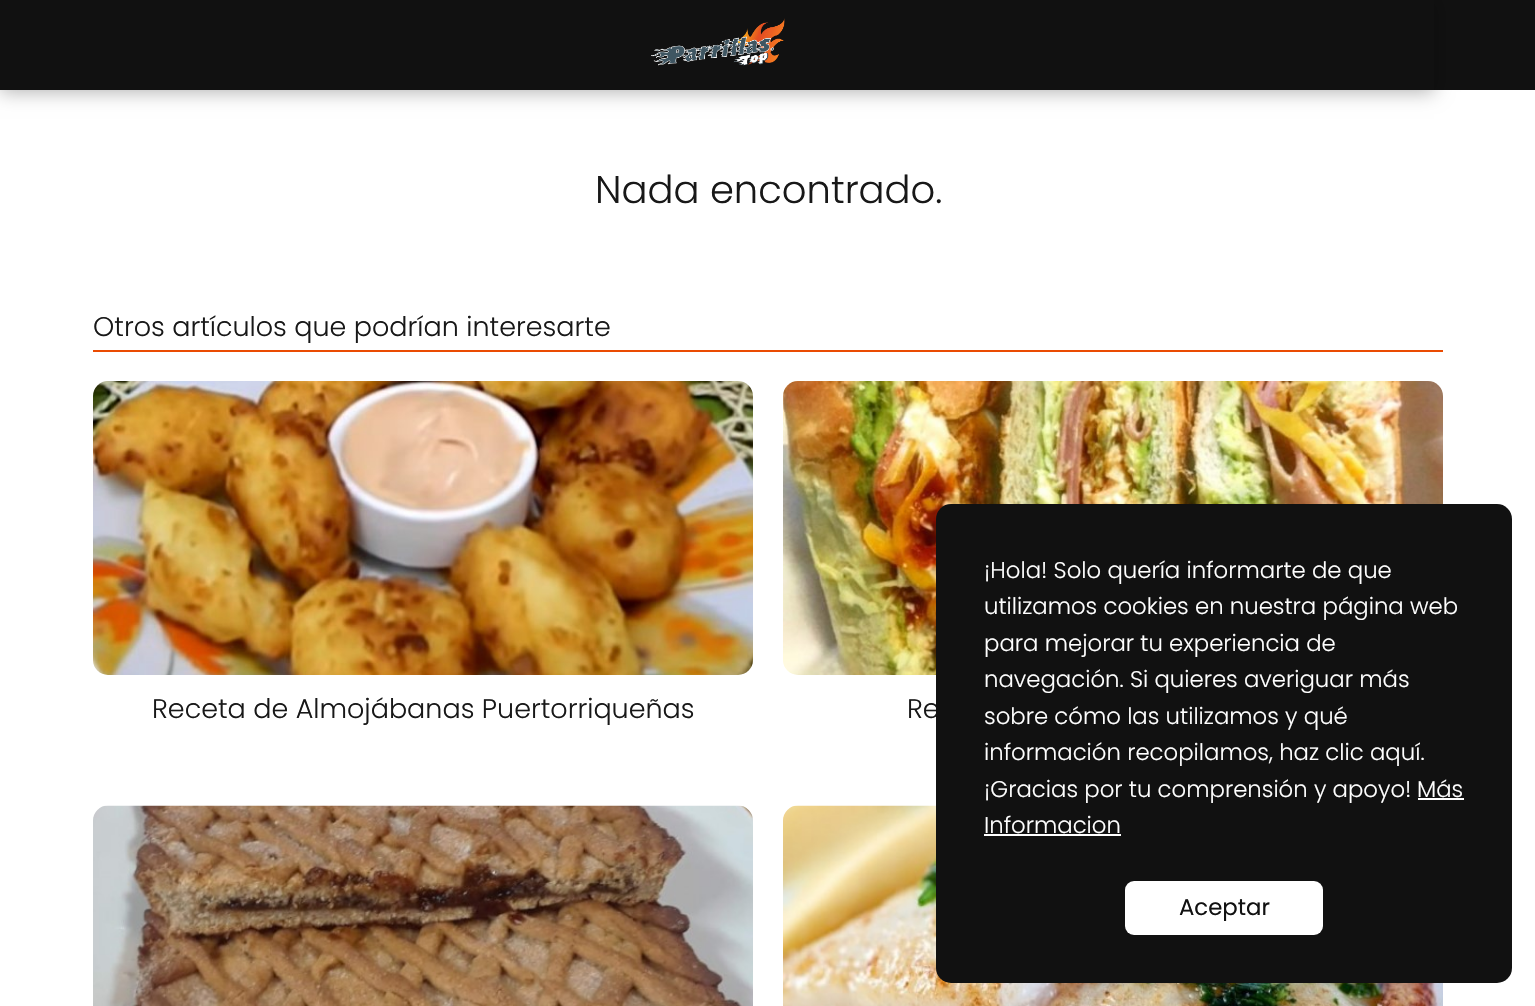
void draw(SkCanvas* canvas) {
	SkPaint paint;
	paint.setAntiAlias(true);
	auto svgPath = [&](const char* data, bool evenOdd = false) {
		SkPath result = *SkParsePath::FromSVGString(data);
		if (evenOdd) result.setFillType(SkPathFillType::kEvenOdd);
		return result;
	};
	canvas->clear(0xffffffff);
	paint.setColor(0xff111111);
	canvas->drawRect(SkRect::MakeXYWH(0, 0, 1535, 90), paint);
	canvas->save();
	canvas->clipPath(svgPath("M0 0H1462V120H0ZM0 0H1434V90H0Z", true), true);
	paint.setColor(0x4d000000);
	paint.setMaskFilter(SkMaskFilter::MakeBlur(kNormal_SkBlurStyle, 9));
	canvas->drawRect(SkRect::MakeXYWH(0, 2, 1434, 90), paint);
	paint.setMaskFilter(nullptr);
	canvas->restore();
	canvas->drawImageRect(SkImages::DeferredFromEncodedData(SkData::MakeFromFileName("img1.png")), SkRect::MakeXYWH(651, 18, 134, 48), SkSamplingOptions());
	SkFont f1(fontMgr->matchFamilyStyle("Poppins", SkFontStyle(300, SkFontStyle::kNormal_Width, SkFontStyle::kUpright_Slant)), 38.5);
	f1.setSubpixel(true);
	paint.setColor(0xff181818);
	canvas->drawString("Nada encontrado.", 595, 203, f1, paint);
	paint.setColor(0xffea4b02);
	canvas->drawRect(SkRect::MakeXYWH(93, 350, 1350, 2), paint);
	SkFont f2(fontMgr->matchFamilyStyle("Poppins", SkFontStyle(300, SkFontStyle::kNormal_Width, SkFontStyle::kUpright_Slant)), 27);
	f2.setSubpixel(true);
	paint.setColor(0xff181818);
	canvas->drawString("Otros artículos que podrían interesarte", 93, 336, f2, paint);
	canvas->drawImageRect(SkImages::DeferredFromEncodedData(SkData::MakeFromFileName("img2.png")), SkRect::MakeXYWH(93, 381, 660, 294), SkSamplingOptions());
	canvas->drawString("Receta de Almojábanas Puertorriqueñas", 152, 718, f2, paint);
	canvas->drawImageRect(SkImages::DeferredFromEncodedData(SkData::MakeFromFileName("img3.png")), SkRect::MakeXYWH(783, 381, 660, 294), SkSamplingOptions());
	canvas->drawString("Re", 907, 718, f2, paint);
	canvas->drawImageRect(SkImages::DeferredFromEncodedData(SkData::MakeFromFileName("img4.png")), SkRect::MakeXYWH(93, 805, 660, 201), SkSamplingOptions());
	canvas->drawImageRect(SkImages::DeferredFromEncodedData(SkData::MakeFromFileName("img5.png")), SkRect::MakeXYWH(783, 805, 660, 201), SkSamplingOptions());
	paint.setColor(0xff111111);
	canvas->drawRoundRect(SkRect::MakeXYWH(936, 504, 576, 479), 15, 15, paint);
	SkFont f3(fontMgr->matchFamilyStyle("Poppins", SkFontStyle(300, SkFontStyle::kNormal_Width, SkFontStyle::kUpright_Slant)), 22.8);
	f3.setSubpixel(true);
	paint.setColor(0xffffffff);
	canvas->drawString("¡Hola! Solo quería informarte de que", 984, 578, f3, paint);
	canvas->drawString("utilizamos cookies en nuestra página web", 984, 614, f3, paint);
	canvas->drawString("para mejorar tu experiencia de", 984, 651, f3, paint);
	canvas->drawString("navegación. Si quieres averiguar más", 984, 687, f3, paint);
	canvas->drawString("sobre cómo las utilizamos y qué", 984, 724, f3, paint);
	canvas->drawString("información recopilamos, haz clic aquí.", 984, 760, f3, paint);
	canvas->drawString("¡Gracias por tu comprensión y apoyo!", 984, 797, f3, paint);
	canvas->drawString("Más", 1417, 797, f3, paint);
	canvas->drawRect(SkRect::MakeXYWH(1418, 798, 46, 2), paint);
	canvas->drawString("Informacion", 984, 833, f3, paint);
	canvas->drawRect(SkRect::MakeXYWH(984, 834, 137, 2), paint);
	canvas->drawRoundRect(SkRect::MakeXYWH(1125, 881, 198, 54), 9, 9, paint);
	SkFont f4(fontMgr->matchFamilyStyle("Poppins", SkFontStyle::Normal()), 22.8);
	f4.setSubpixel(true);
	paint.setColor(0xff111111);
	canvas->drawString("Aceptar", 1179, 915, f4, paint);
}
